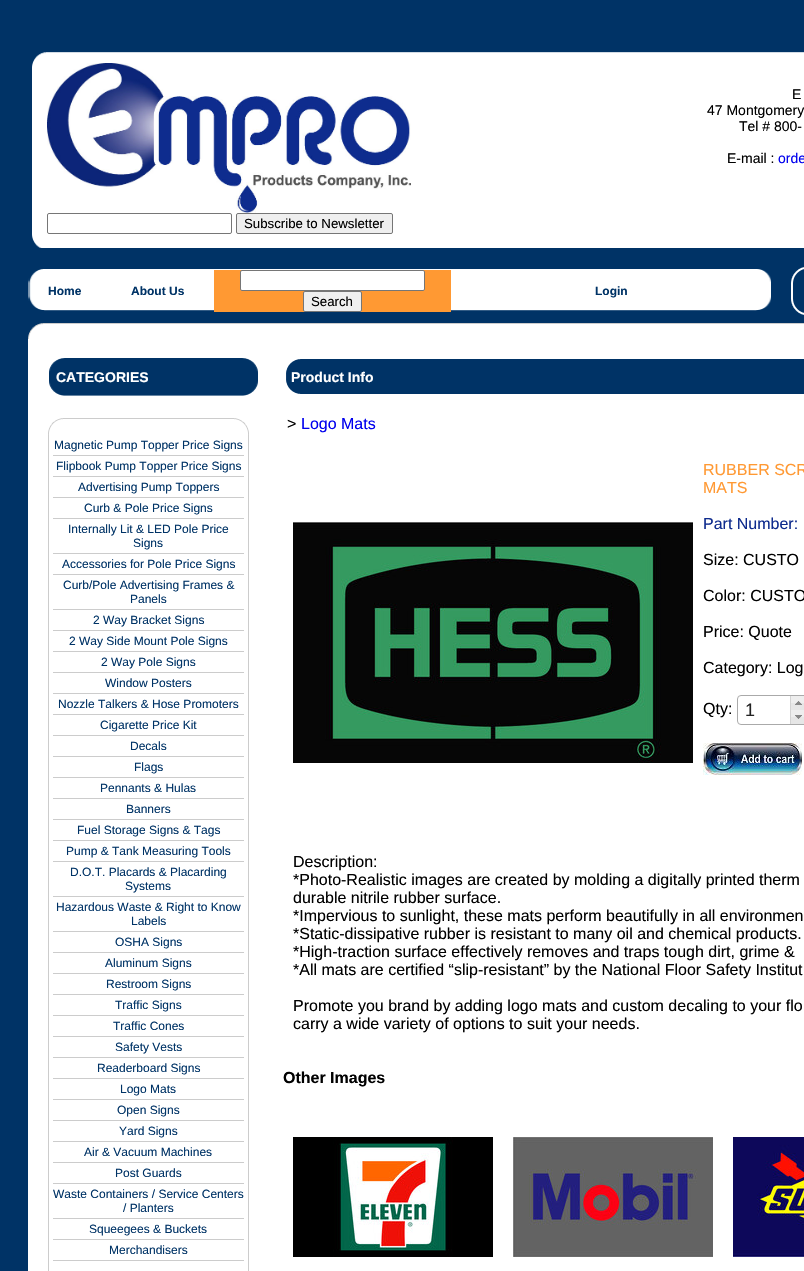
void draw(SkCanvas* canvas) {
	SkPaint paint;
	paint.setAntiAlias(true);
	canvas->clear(0xff003366);
	canvas->drawImageRect(SkImages::DeferredFromEncodedData(SkData::MakeFromFileName("img1.png")), SkRect::MakeXYWH(32, 52, 772, 196), SkSamplingOptions());
	SkFont f1(fontMgr->matchFamilyStyle("Liberation Sans", SkFontStyle::Normal()), 14);
	f1.setSubpixel(true);
	paint.setColor(0xff000000);
	canvas->drawString("E", 792, 99, f1, paint);
	canvas->drawString("47 Montgomery", 707, 115, f1, paint);
	canvas->drawString("Tel # 800-", 739, 131, f1, paint);
	canvas->drawString("E-mail :", 727, 163, f1, paint);
	paint.setColor(0xff0000ee);
	canvas->drawString("orde", 778, 163, f1, paint);
	canvas->drawImageRect(SkImages::DeferredFromEncodedData(SkData::MakeFromFileName("img2.png")), SkRect::MakeXYWH(47, 63, 364, 150), SkSamplingOptions());
	paint.setStroke(true);
	paint.setStrokeWidth(1);
	paint.setColor(0xff767676);
	canvas->drawRoundRect(SkRect::MakeXYWH(47.5, 213.5, 184, 20), 1.5, 1.5, paint);
	paint.setStroke(false);
	paint.setColor(0xffefefef);
	canvas->drawRoundRect(SkRect::MakeXYWH(236.5, 213.5, 156, 20), 1.5, 1.5, paint);
	paint.setStroke(true);
	paint.setColor(0xff767676);
	canvas->drawRoundRect(SkRect::MakeXYWH(236.5, 213.5, 156, 20), 1.5, 1.5, paint);
	SkFont f2(fontMgr->matchFamilyStyle("Liberation Sans", SkFontStyle::Normal()), 13.25);
	f2.setSubpixel(true);
	paint.setStroke(false);
	paint.setColor(0xff000000);
	canvas->drawString("Subscribe to Newsletter", 244, 228, f2, paint);
	canvas->drawImageRect(SkImages::DeferredFromEncodedData(SkData::MakeFromFileName("img3.png")), SkRect::MakeXYWH(28, 269, 743, 42), SkSamplingOptions());
	SkFont f3(fontMgr->matchFamilyStyle("Liberation Sans", SkFontStyle::Bold()), 12);
	f3.setSubpixel(true);
	paint.setColor(0xff003366);
	canvas->drawString("Home", 48, 295, f3, paint);
	canvas->drawString("About Us", 131, 295, f3, paint);
	canvas->drawString("Login", 595, 295, f3, paint);
	paint.setColor(0xffff9933);
	canvas->drawRect(SkRect::MakeXYWH(214, 270, 237, 42), paint);
	paint.setColor(0xffffffff);
	canvas->drawRoundRect(SkRect::MakeXYWH(240.5, 270.5, 184, 20), 1.5, 1.5, paint);
	paint.setStroke(true);
	paint.setColor(0xff767676);
	canvas->drawRoundRect(SkRect::MakeXYWH(240.5, 270.5, 184, 20), 1.5, 1.5, paint);
	paint.setStroke(false);
	paint.setColor(0xffefefef);
	canvas->drawRoundRect(SkRect::MakeXYWH(303.5, 291.5, 58, 20), 1.5, 1.5, paint);
	paint.setStroke(true);
	paint.setColor(0xff767676);
	canvas->drawRoundRect(SkRect::MakeXYWH(303.5, 291.5, 58, 20), 1.5, 1.5, paint);
	paint.setStroke(false);
	paint.setColor(0xff000000);
	canvas->drawString("Search", 311, 306, f2, paint);
	canvas->drawImageRect(SkImages::DeferredFromEncodedData(SkData::MakeFromFileName("img4.png")), SkRect::MakeXYWH(791, 267, 13, 48), SkSamplingOptions());
	canvas->drawImageRect(SkImages::DeferredFromEncodedData(SkData::MakeFromFileName("img5.png")), SkRect::MakeXYWH(28, 323, 776, 16), SkSamplingOptions());
	paint.setColor(0xffffffff);
	canvas->drawRect(SkRect::MakeXYWH(28, 339, 776, 932), paint);
	canvas->drawImageRect(SkImages::DeferredFromEncodedData(SkData::MakeFromFileName("img6.png")), SkRect::MakeXYWH(49, 358, 209, 38), SkSamplingOptions());
	SkFont f4(fontMgr->matchFamilyStyle("Liberation Sans", SkFontStyle::Bold()), 14);
	f4.setSubpixel(true);
	canvas->drawString("CATEGORIES", 56, 382, f4, paint);
	canvas->drawImageRect(SkImages::DeferredFromEncodedData(SkData::MakeFromFileName("img7.png")), SkRect::MakeXYWH(48, 418, 201, 17), SkSamplingOptions());
	paint.setColor(0xffcccccc);
	canvas->drawRect(SkRect::MakeXYWH(248, 435, 1, 836), paint);
	canvas->drawRect(SkRect::MakeXYWH(48, 435, 1, 836), paint);
	canvas->drawRect(SkRect::MakeXYWH(53, 455, 191, 1), paint);
	SkFont f5(fontMgr->matchFamilyStyle("Liberation Sans", SkFontStyle::Normal()), 12);
	f5.setSubpixel(true);
	paint.setColor(0xff003366);
	canvas->drawString("Magnetic Pump Topper Price Signs", 54, 449, f5, paint);
	paint.setColor(0xffcccccc);
	canvas->drawRect(SkRect::MakeXYWH(53, 476, 191, 1), paint);
	paint.setColor(0xff003366);
	canvas->drawString("Flipbook Pump Topper Price Signs", 56, 470, f5, paint);
	paint.setColor(0xffcccccc);
	canvas->drawRect(SkRect::MakeXYWH(53, 497, 191, 1), paint);
	paint.setColor(0xff003366);
	canvas->drawString("Advertising Pump Toppers", 78, 491, f5, paint);
	paint.setColor(0xffcccccc);
	canvas->drawRect(SkRect::MakeXYWH(53, 518, 191, 1), paint);
	paint.setColor(0xff003366);
	canvas->drawString("Curb & Pole Price Signs", 84, 512, f5, paint);
	paint.setColor(0xffcccccc);
	canvas->drawRect(SkRect::MakeXYWH(53, 553, 191, 1), paint);
	paint.setColor(0xff003366);
	canvas->drawString("Internally Lit & LED Pole Price", 68, 533, f5, paint);
	canvas->drawString("Signs", 133, 547, f5, paint);
	paint.setColor(0xffcccccc);
	canvas->drawRect(SkRect::MakeXYWH(53, 574, 191, 1), paint);
	paint.setColor(0xff003366);
	canvas->drawString("Accessories for Pole Price Signs", 62, 568, f5, paint);
	paint.setColor(0xffcccccc);
	canvas->drawRect(SkRect::MakeXYWH(53, 609, 191, 1), paint);
	paint.setColor(0xff003366);
	canvas->drawString("Curb/Pole Advertising Frames &", 63, 589, f5, paint);
	canvas->drawString("Panels", 130, 603, f5, paint);
	paint.setColor(0xffcccccc);
	canvas->drawRect(SkRect::MakeXYWH(53, 630, 191, 1), paint);
	paint.setColor(0xff003366);
	canvas->drawString("2 Way Bracket Signs", 93, 624, f5, paint);
	paint.setColor(0xffcccccc);
	canvas->drawRect(SkRect::MakeXYWH(53, 651, 191, 1), paint);
	paint.setColor(0xff003366);
	canvas->drawString("2 Way Side Mount Pole Signs", 69, 645, f5, paint);
	paint.setColor(0xffcccccc);
	canvas->drawRect(SkRect::MakeXYWH(53, 672, 191, 1), paint);
	paint.setColor(0xff003366);
	canvas->drawString("2 Way Pole Signs", 101, 666, f5, paint);
	paint.setColor(0xffcccccc);
	canvas->drawRect(SkRect::MakeXYWH(53, 693, 191, 1), paint);
	paint.setColor(0xff003366);
	canvas->drawString("Window Posters", 105, 687, f5, paint);
	paint.setColor(0xffcccccc);
	canvas->drawRect(SkRect::MakeXYWH(53, 714, 191, 1), paint);
	paint.setColor(0xff003366);
	canvas->drawString("Nozzle Talkers & Hose Promoters", 58, 708, f5, paint);
	paint.setColor(0xffcccccc);
	canvas->drawRect(SkRect::MakeXYWH(53, 735, 191, 1), paint);
	paint.setColor(0xff003366);
	canvas->drawString("Cigarette Price Kit", 100, 729, f5, paint);
	paint.setColor(0xffcccccc);
	canvas->drawRect(SkRect::MakeXYWH(53, 756, 191, 1), paint);
	paint.setColor(0xff003366);
	canvas->drawString("Decals", 130, 750, f5, paint);
	paint.setColor(0xffcccccc);
	canvas->drawRect(SkRect::MakeXYWH(53, 777, 191, 1), paint);
	paint.setColor(0xff003366);
	canvas->drawString("Flags", 134, 771, f5, paint);
	paint.setColor(0xffcccccc);
	canvas->drawRect(SkRect::MakeXYWH(53, 798, 191, 1), paint);
	paint.setColor(0xff003366);
	canvas->drawString("Pennants & Hulas", 100, 792, f5, paint);
	paint.setColor(0xffcccccc);
	canvas->drawRect(SkRect::MakeXYWH(53, 819, 191, 1), paint);
	paint.setColor(0xff003366);
	canvas->drawString("Banners", 126, 813, f5, paint);
	paint.setColor(0xffcccccc);
	canvas->drawRect(SkRect::MakeXYWH(53, 840, 191, 1), paint);
	paint.setColor(0xff003366);
	canvas->drawString("Fuel Storage Signs & Tags", 77, 834, f5, paint);
	paint.setColor(0xffcccccc);
	canvas->drawRect(SkRect::MakeXYWH(53, 861, 191, 1), paint);
	paint.setColor(0xff003366);
	canvas->drawString("Pump & Tank Measuring Tools", 66, 855, f5, paint);
	paint.setColor(0xffcccccc);
	canvas->drawRect(SkRect::MakeXYWH(53, 896, 191, 1), paint);
	paint.setColor(0xff003366);
	canvas->drawString("D.O.T. Placards & Placarding", 70, 876, f5, paint);
	canvas->drawString("Systems", 125, 890, f5, paint);
	paint.setColor(0xffcccccc);
	canvas->drawRect(SkRect::MakeXYWH(53, 931, 191, 1), paint);
	paint.setColor(0xff003366);
	canvas->drawString("Hazardous Waste & Right to Know", 56, 911, f5, paint);
	canvas->drawString("Labels", 131, 925, f5, paint);
	paint.setColor(0xffcccccc);
	canvas->drawRect(SkRect::MakeXYWH(53, 952, 191, 1), paint);
	paint.setColor(0xff003366);
	canvas->drawString("OSHA Signs", 115, 946, f5, paint);
	paint.setColor(0xffcccccc);
	canvas->drawRect(SkRect::MakeXYWH(53, 973, 191, 1), paint);
	paint.setColor(0xff003366);
	canvas->drawString("Aluminum Signs", 105, 967, f5, paint);
	paint.setColor(0xffcccccc);
	canvas->drawRect(SkRect::MakeXYWH(53, 994, 191, 1), paint);
	paint.setColor(0xff003366);
	canvas->drawString("Restroom Signs", 106, 988, f5, paint);
	paint.setColor(0xffcccccc);
	canvas->drawRect(SkRect::MakeXYWH(53, 1015, 191, 1), paint);
	paint.setColor(0xff003366);
	canvas->drawString("Traffic Signs", 115, 1009, f5, paint);
	paint.setColor(0xffcccccc);
	canvas->drawRect(SkRect::MakeXYWH(53, 1036, 191, 1), paint);
	paint.setColor(0xff003366);
	canvas->drawString("Traffic Cones", 113, 1030, f5, paint);
	paint.setColor(0xffcccccc);
	canvas->drawRect(SkRect::MakeXYWH(53, 1057, 191, 1), paint);
	paint.setColor(0xff003366);
	canvas->drawString("Safety Vests", 115, 1051, f5, paint);
	paint.setColor(0xffcccccc);
	canvas->drawRect(SkRect::MakeXYWH(53, 1078, 191, 1), paint);
	paint.setColor(0xff003366);
	canvas->drawString("Readerboard Signs", 97, 1072, f5, paint);
	paint.setColor(0xffcccccc);
	canvas->drawRect(SkRect::MakeXYWH(53, 1099, 191, 1), paint);
	paint.setColor(0xff003366);
	canvas->drawString("Logo Mats", 120, 1093, f5, paint);
	paint.setColor(0xffcccccc);
	canvas->drawRect(SkRect::MakeXYWH(53, 1120, 191, 1), paint);
	paint.setColor(0xff003366);
	canvas->drawString("Open Signs", 117, 1114, f5, paint);
	paint.setColor(0xffcccccc);
	canvas->drawRect(SkRect::MakeXYWH(53, 1141, 191, 1), paint);
	paint.setColor(0xff003366);
	canvas->drawString("Yard Signs", 119, 1135, f5, paint);
	paint.setColor(0xffcccccc);
	canvas->drawRect(SkRect::MakeXYWH(53, 1162, 191, 1), paint);
	paint.setColor(0xff003366);
	canvas->drawString("Air & Vacuum Machines", 84, 1156, f5, paint);
	paint.setColor(0xffcccccc);
	canvas->drawRect(SkRect::MakeXYWH(53, 1183, 191, 1), paint);
	paint.setColor(0xff003366);
	canvas->drawString("Post Guards", 115, 1177, f5, paint);
	paint.setColor(0xffcccccc);
	canvas->drawRect(SkRect::MakeXYWH(53, 1218, 191, 1), paint);
	paint.setColor(0xff003366);
	canvas->drawString("Waste Containers / Service Centers", 53, 1198, f5, paint);
	canvas->drawString("/ Planters", 123, 1212, f5, paint);
	paint.setColor(0xffcccccc);
	canvas->drawRect(SkRect::MakeXYWH(53, 1239, 191, 1), paint);
	paint.setColor(0xff003366);
	canvas->drawString("Squeegees & Buckets", 89, 1233, f5, paint);
	paint.setColor(0xffcccccc);
	canvas->drawRect(SkRect::MakeXYWH(53, 1260, 191, 1), paint);
	paint.setColor(0xff003366);
	canvas->drawString("Merchandisers", 109, 1254, f5, paint);
	canvas->drawImageRect(SkImages::DeferredFromEncodedData(SkData::MakeFromFileName("img8.png")), SkRect::MakeXYWH(286, 359, 518, 35), SkSamplingOptions());
	paint.setColor(0xffffffff);
	canvas->drawString("Product Info", 291, 382, f4, paint);
	SkFont f6(fontMgr->matchFamilyStyle("Liberation Sans", SkFontStyle::Normal()), 16);
	f6.setSubpixel(true);
	paint.setColor(0xff000000);
	canvas->drawString(">", 287, 429, f6, paint);
	paint.setColor(0xff0000ee);
	canvas->drawString("Logo Mats", 301, 429, f6, paint);
	paint.setColor(0xffff9933);
	canvas->drawString("RUBBER SCR", 703, 475, f6, paint);
	canvas->drawString("MATS", 703, 493, f6, paint);
	paint.setColor(0xff0e2b8d);
	canvas->drawString("Part Number:", 703, 529, f6, paint);
	paint.setColor(0xff000000);
	canvas->drawString("Size: CUSTO", 703, 565, f6, paint);
	canvas->drawString("Color: CUSTO", 703, 601, f6, paint);
	canvas->drawString("Price: Quote", 703, 637, f6, paint);
	canvas->drawString("Category: Log", 703, 673, f6, paint);
	canvas->drawString("Qty:", 703, 714, f6, paint);
	paint.setStroke(true);
	paint.setColor(0xffaaaaaa);
	canvas->drawRoundRect(SkRect::MakeXYWH(737.5, 695.5, 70, 29), 3.5, 3.5, paint);
	SkFont f7(fontMgr->matchFamilyStyle("Liberation Sans", SkFontStyle::Normal()), 18);
	f7.setSubpixel(true);
	paint.setStroke(false);
	paint.setColor(0xff222222);
	canvas->drawString("1", 745, 716, f7, paint);
	paint.setColor(0xffe6e6e6);
	canvas->drawRect(SkRect::MakeXYWH(791, 703, 13, 7), paint);
	paint.setColor(0xffeeeeee);
	canvas->drawRect(SkRect::MakeXYWH(790, 696, 14, 7), paint);
	paint.setColor(0xffd3d3d3);
	canvas->drawRect(SkRect::MakeXYWH(790, 696, 1, 14), paint);
	canvas->drawImageRect(SkImages::DeferredFromEncodedData(SkData::MakeFromFileName("img9.png")), SkRect::MakeXYWH(795, 701, 7, 4), SkSamplingOptions());
	paint.setColor(0xffe6e6e6);
	canvas->drawRect(SkRect::MakeXYWH(791, 717, 13, 7), paint);
	paint.setColor(0xffeeeeee);
	canvas->drawRect(SkRect::MakeXYWH(790, 710, 14, 7), paint);
	paint.setColor(0xffd3d3d3);
	canvas->drawRect(SkRect::MakeXYWH(790, 710, 1, 14), paint);
	canvas->drawImageRect(SkImages::DeferredFromEncodedData(SkData::MakeFromFileName("img10.png")), SkRect::MakeXYWH(795, 715, 7, 4), SkSamplingOptions());
	canvas->drawImageRect(SkImages::DeferredFromEncodedData(SkData::MakeFromFileName("img11.png")), SkRect::MakeXYWH(703, 743, 99, 32), SkSamplingOptions());
	paint.setColor(0xff000000);
	canvas->drawString("Description:", 293, 867, f6, paint);
	canvas->drawString("*Photo-Realistic images are created by molding a digitally printed therm", 293, 885, f6, paint);
	canvas->drawString("durable nitrile rubber surface.", 293, 903, f6, paint);
	canvas->drawString("*Impervious to sunlight, these mats perform beautifully in all environmen", 293, 921, f6, paint);
	canvas->drawString("*Static-dissipative rubber is resistant to many oil and chemical products.", 293, 939, f6, paint);
	canvas->drawString("*High-traction surface effectively removes and traps tough dirt, grime &", 293, 957, f6, paint);
	canvas->drawString("*All mats are certified “slip-resistant” by the National Floor Safety Institut", 293, 975, f6, paint);
	canvas->drawString("Promote you brand by adding logo mats and custom decaling to your flo", 293, 1011, f6, paint);
	canvas->drawString("carry a wide variety of options to suit your needs.", 293, 1029, f6, paint);
	canvas->drawImageRect(SkImages::DeferredFromEncodedData(SkData::MakeFromFileName("img12.png")), SkRect::MakeXYWH(293, 522, 400, 241), SkSamplingOptions());
	SkFont f8(fontMgr->matchFamilyStyle("Liberation Sans", SkFontStyle::Bold()), 16);
	f8.setSubpixel(true);
	canvas->drawString("Other Images", 283, 1083, f8, paint);
	canvas->drawImageRect(SkImages::DeferredFromEncodedData(SkData::MakeFromFileName("img13.png")), SkRect::MakeXYWH(293, 1137, 200, 120), SkSamplingOptions());
	canvas->drawImageRect(SkImages::DeferredFromEncodedData(SkData::MakeFromFileName("img14.png")), SkRect::MakeXYWH(513, 1137, 200, 120), SkSamplingOptions());
	canvas->drawImageRect(SkImages::DeferredFromEncodedData(SkData::MakeFromFileName("img15.png")), SkRect::MakeXYWH(733, 1137, 71, 120), SkSamplingOptions());
}
